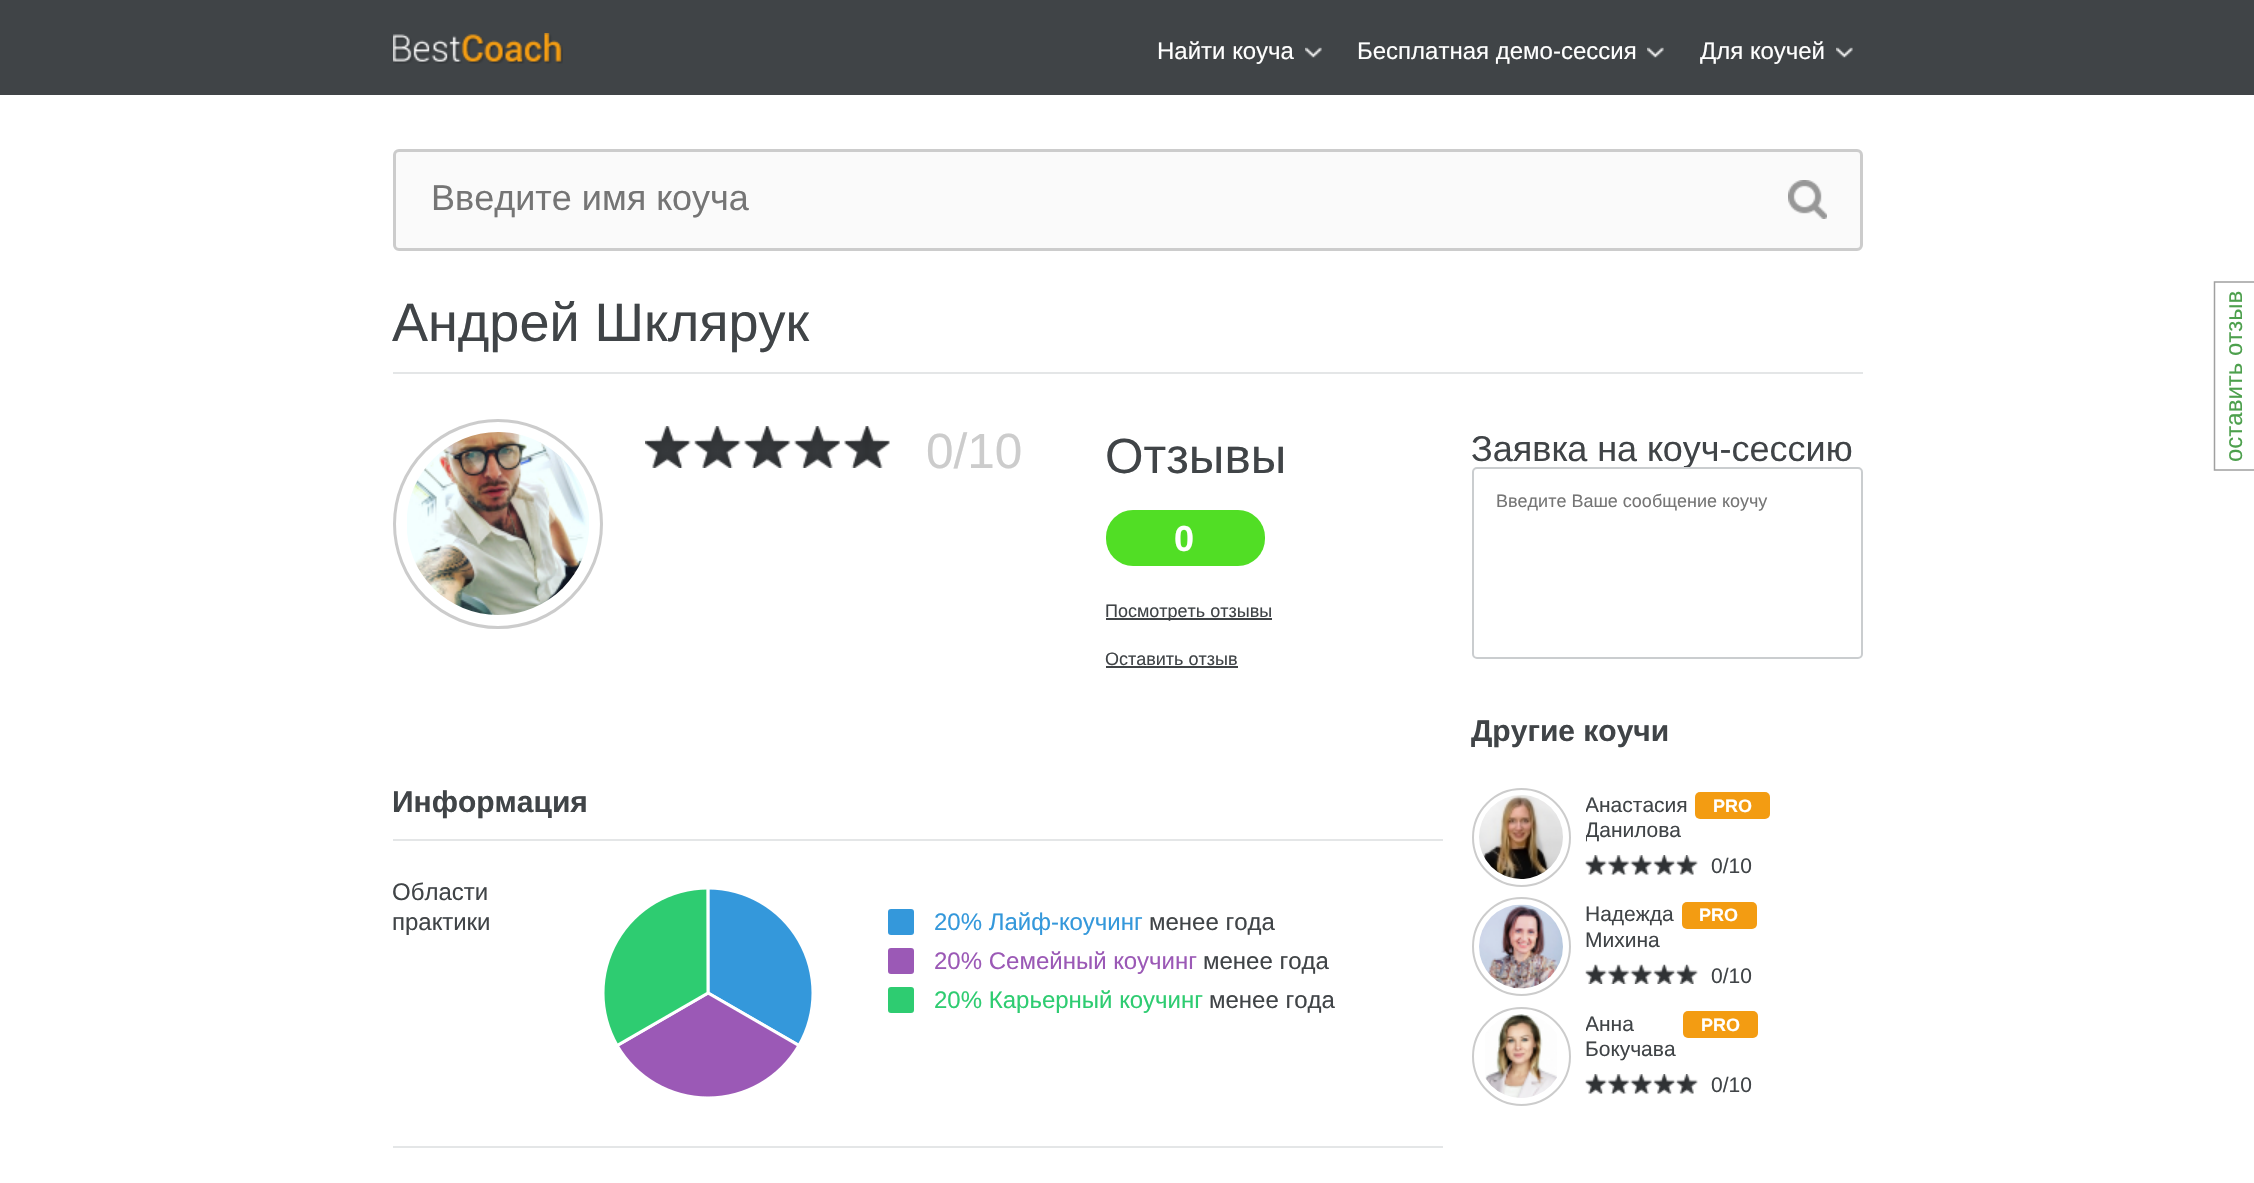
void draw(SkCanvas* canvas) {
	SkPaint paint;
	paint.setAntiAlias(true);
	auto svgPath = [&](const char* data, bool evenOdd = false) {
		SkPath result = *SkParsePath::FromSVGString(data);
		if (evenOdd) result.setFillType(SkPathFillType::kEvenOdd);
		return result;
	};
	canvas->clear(0xffffffff);
	paint.setColor(0xff404447);
	canvas->drawRect(SkRect::MakeXYWH(0, 0, 2254, 95), paint);
	canvas->drawImageRect(SkImages::DeferredFromEncodedData(SkData::MakeFromFileName("img1.png")), SkRect::MakeXYWH(393, 33, 170, 31), SkSamplingOptions());
	SkFont f1(fontMgr->matchFamilyStyle("Liberation Sans", SkFontStyle::Normal()), 24);
	f1.setSubpixel(true);
	paint.setColor(0xffffffff);
	canvas->drawString("Найти коуча", 1157, 59, f1, paint);
	canvas->drawImageRect(SkImages::DeferredFromEncodedData(SkData::MakeFromFileName("img2.png")), SkRect::MakeXYWH(1305, 47, 17, 11), SkSamplingOptions());
	canvas->drawString("Бесплатная демо-сессия", 1357, 59, f1, paint);
	canvas->drawImageRect(SkImages::DeferredFromEncodedData(SkData::MakeFromFileName("img2.png")), SkRect::MakeXYWH(1647, 47, 17, 11), SkSamplingOptions());
	canvas->drawString("Для коучей", 1700, 59, f1, paint);
	canvas->drawImageRect(SkImages::DeferredFromEncodedData(SkData::MakeFromFileName("img3.png")), SkRect::MakeXYWH(1836, 47, 17, 11), SkSamplingOptions());
	paint.setColor(0xfffafafa);
	canvas->drawRoundRect(SkRect::MakeXYWH(394.5, 150.5, 1467, 99), 4.5, 4.5, paint);
	paint.setStroke(true);
	paint.setStrokeWidth(3);
	paint.setColor(0xffcccccc);
	canvas->drawRoundRect(SkRect::MakeXYWH(394.5, 150.5, 1467, 99), 4.5, 4.5, paint);
	SkFont f2(fontMgr->matchFamilyStyle("Liberation Sans", SkFontStyle::Normal()), 36);
	f2.setSubpixel(true);
	paint.setStroke(false);
	paint.setColor(0xff757575);
	canvas->drawString("Введите имя коуча", 431, 210, f2, paint);
	canvas->drawImageRect(SkImages::DeferredFromEncodedData(SkData::MakeFromFileName("img4.png")), SkRect::MakeXYWH(1788, 180, 39, 39), SkSamplingOptions());
	paint.setColor(0xffe4e6e7);
	canvas->drawRect(SkRect::MakeXYWH(393, 372, 1470, 2), paint);
	SkFont f3(fontMgr->matchFamilyStyle("Liberation Sans", SkFontStyle::Normal()), 54);
	f3.setSubpixel(true);
	paint.setColor(0xff404447);
	canvas->drawString("Андрей Шклярук", 392, 341, f3, paint);
	paint.setStroke(true);
	paint.setColor(0xffcccccc);
	canvas->drawCircle(498, 524, 103.5, paint);
	canvas->drawImageRect(SkImages::DeferredFromEncodedData(SkData::MakeFromFileName("img5.png")), SkRect::MakeXYWH(407, 432, 182, 183), SkSamplingOptions());
	canvas->drawImageRect(SkImages::DeferredFromEncodedData(SkData::MakeFromFileName("img6.png")), SkRect::MakeXYWH(645, 426, 245, 42), SkSamplingOptions());
	SkFont f4(fontMgr->matchFamilyStyle("Liberation Sans", SkFontStyle::Normal()), 49.5);
	f4.setSubpixel(true);
	paint.setStroke(false);
	canvas->drawString("0/10", 926, 468, f4, paint);
	paint.setColor(0xff404447);
	canvas->drawString("Отзывы", 1105, 473, f4, paint);
	paint.setColor(0xff51de25);
	canvas->drawRoundRect(SkRect::MakeXYWH(1106, 510, 159, 56), 27, 27, paint);
	SkFont f5(fontMgr->matchFamilyStyle("Liberation Sans", SkFontStyle::Bold()), 36);
	f5.setSubpixel(true);
	paint.setColor(0xffffffff);
	canvas->drawString("0", 1174, 551, f5, paint);
	paint.setColor(0xff404447);
	canvas->drawRect(SkRect::MakeXYWH(1106, 618, 166, 2), paint);
	SkFont f6(fontMgr->matchFamilyStyle("Liberation Sans", SkFontStyle::Normal()), 18);
	f6.setSubpixel(true);
	canvas->drawString("Посмотреть отзывы", 1105, 617, f6, paint);
	canvas->drawString("Оставить отзыв", 1105, 665, f6, paint);
	canvas->drawRect(SkRect::MakeXYWH(1106, 666, 132, 2), paint);
	SkFont f7(fontMgr->matchFamilyStyle("Liberation Sans", SkFontStyle::Bold()), 30);
	f7.setSubpixel(true);
	canvas->drawString("Информация", 392, 812, f7, paint);
	paint.setColor(0xffe4e6e7);
	canvas->drawRect(SkRect::MakeXYWH(393, 839, 1050, 2), paint);
	paint.setColor(0xff404447);
	canvas->drawString("Области", 392, 900, f1, paint);
	canvas->drawString("практики", 392, 930, f1, paint);
	canvas->drawImageRect(SkImages::DeferredFromEncodedData(SkData::MakeFromFileName("img7.png")), SkRect::MakeXYWH(604, 889, 208, 208), SkSamplingOptions());
	paint.setColor(0xff3498db);
	canvas->drawRoundRect(SkRect::MakeXYWH(888, 909, 26, 26), 3, 3, paint);
	canvas->drawString("20% Лайф-коучинг", 934, 930, f1, paint);
	paint.setColor(0xff404447);
	canvas->drawString("менее года", 1149, 930, f1, paint);
	paint.setColor(0xff9b59b6);
	canvas->drawRoundRect(SkRect::MakeXYWH(888, 948, 26, 26), 3, 3, paint);
	canvas->drawString("20% Семейный коучинг", 934, 969, f1, paint);
	paint.setColor(0xff404447);
	canvas->drawString("менее года", 1203, 969, f1, paint);
	paint.setColor(0xff2ecc71);
	canvas->drawRoundRect(SkRect::MakeXYWH(888, 987, 26, 26), 3, 3, paint);
	canvas->drawString("20% Карьерный коучинг", 934, 1008, f1, paint);
	paint.setColor(0xff404447);
	canvas->drawString("менее года", 1209, 1008, f1, paint);
	paint.setColor(0xffe4e6e7);
	canvas->drawRect(SkRect::MakeXYWH(393, 1146, 1050, 2), paint);
	paint.setColor(0xff404447);
	canvas->drawString("Заявка на коуч-сессию", 1471, 461, f2, paint);
	paint.setStroke(true);
	paint.setStrokeWidth(2);
	paint.setColor(0xffcacdcf);
	canvas->drawRoundRect(SkRect::MakeXYWH(1473, 468, 389, 190), 4, 4, paint);
	paint.setStroke(false);
	paint.setColor(0xff757575);
	canvas->drawString("Введите Ваше сообщение коучу", 1496, 507, f6, paint);
	paint.setColor(0xff404447);
	canvas->drawString("Другие коучи", 1471, 741, f7, paint);
	paint.setStroke(true);
	paint.setColor(0xffcccccc);
	canvas->drawCircle(1521.5, 837.5, 48.5, paint);
	canvas->drawImageRect(SkImages::DeferredFromEncodedData(SkData::MakeFromFileName("img8.png")), SkRect::MakeXYWH(1479, 795, 84, 84), SkSamplingOptions());
	canvas->save();
	canvas->clipRect(SkRect::MakeXYWH(1586, 788, 277, 88));
	SkFont f8(fontMgr->matchFamilyStyle("Liberation Sans", SkFontStyle::Normal()), 21);
	f8.setSubpixel(true);
	paint.setStroke(false);
	paint.setColor(0xff404447);
	canvas->drawString("Анастасия", 1585, 812, f8, paint);
	canvas->drawString("Данилова", 1585, 837, f8, paint);
	canvas->restore();
	paint.setColor(0xfff39c12);
	canvas->drawRoundRect(SkRect::MakeXYWH(1695, 792, 75, 27), 5, 5, paint);
	SkFont f9(fontMgr->matchFamilyStyle("Liberation Sans", SkFontStyle::Bold()), 18);
	f9.setSubpixel(true);
	paint.setColor(0xffffffff);
	canvas->drawString("PRO", 1713, 812, f9, paint);
	canvas->drawImageRect(SkImages::DeferredFromEncodedData(SkData::MakeFromFileName("img9.png")), SkRect::MakeXYWH(1585, 855, 113, 20), SkSamplingOptions());
	paint.setColor(0xff404447);
	canvas->drawString("0/10", 1711, 873, f8, paint);
	paint.setStroke(true);
	paint.setColor(0xffcccccc);
	canvas->drawCircle(1521.5, 946.5, 48.5, paint);
	canvas->drawImageRect(SkImages::DeferredFromEncodedData(SkData::MakeFromFileName("img10.png")), SkRect::MakeXYWH(1479, 904, 84, 85), SkSamplingOptions());
	paint.setStroke(false);
	paint.setColor(0xff404447);
	canvas->drawString("Надежда", 1585, 921, f8, paint);
	canvas->drawString("Михина", 1585, 947, f8, paint);
	paint.setColor(0xfff39c12);
	canvas->drawRoundRect(SkRect::MakeXYWH(1682, 902, 75, 27), 5, 5, paint);
	paint.setColor(0xffffffff);
	canvas->drawString("PRO", 1699, 921, f9, paint);
	canvas->drawImageRect(SkImages::DeferredFromEncodedData(SkData::MakeFromFileName("img11.png")), SkRect::MakeXYWH(1585, 964, 113, 20), SkSamplingOptions());
	paint.setColor(0xff404447);
	canvas->drawString("0/10", 1711, 983, f8, paint);
	paint.setStroke(true);
	paint.setColor(0xffcccccc);
	canvas->drawCircle(1521.5, 1056.5, 48.5, paint);
	canvas->drawImageRect(SkImages::DeferredFromEncodedData(SkData::MakeFromFileName("img12.png")), SkRect::MakeXYWH(1485, 1014, 72, 84), SkSamplingOptions());
	canvas->save();
	canvas->clipRect(SkRect::MakeXYWH(1586, 1007, 277, 88));
	paint.setStroke(false);
	paint.setColor(0xff404447);
	canvas->drawString("Анна", 1585, 1031, f8, paint);
	canvas->restore();
	canvas->drawString("Бокучава", 1585, 1056, f8, paint);
	paint.setColor(0xfff39c12);
	canvas->drawRoundRect(SkRect::MakeXYWH(1683, 1011, 75, 27), 5, 5, paint);
	paint.setColor(0xffffffff);
	canvas->drawString("PRO", 1701, 1031, f9, paint);
	canvas->drawImageRect(SkImages::DeferredFromEncodedData(SkData::MakeFromFileName("img9.png")), SkRect::MakeXYWH(1585, 1074, 113, 20), SkSamplingOptions());
	paint.setColor(0xff404447);
	canvas->drawString("0/10", 1711, 1092, f8, paint);
	paint.setStroke(true);
	paint.setStrokeWidth(1.5);
	paint.setColor(0xffa0a0a0);
	canvas->drawPath(svgPath("M2214.5 470V282H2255V470Z"), paint);
	paint.setStroke(false);
	paint.setColor(0xff4da04d);
	canvas->save();
	canvas->rotate(-90, 2242, 462);
	canvas->drawString("оставить отзыв", 2242, 462, f1, paint);
	canvas->restore();
}
